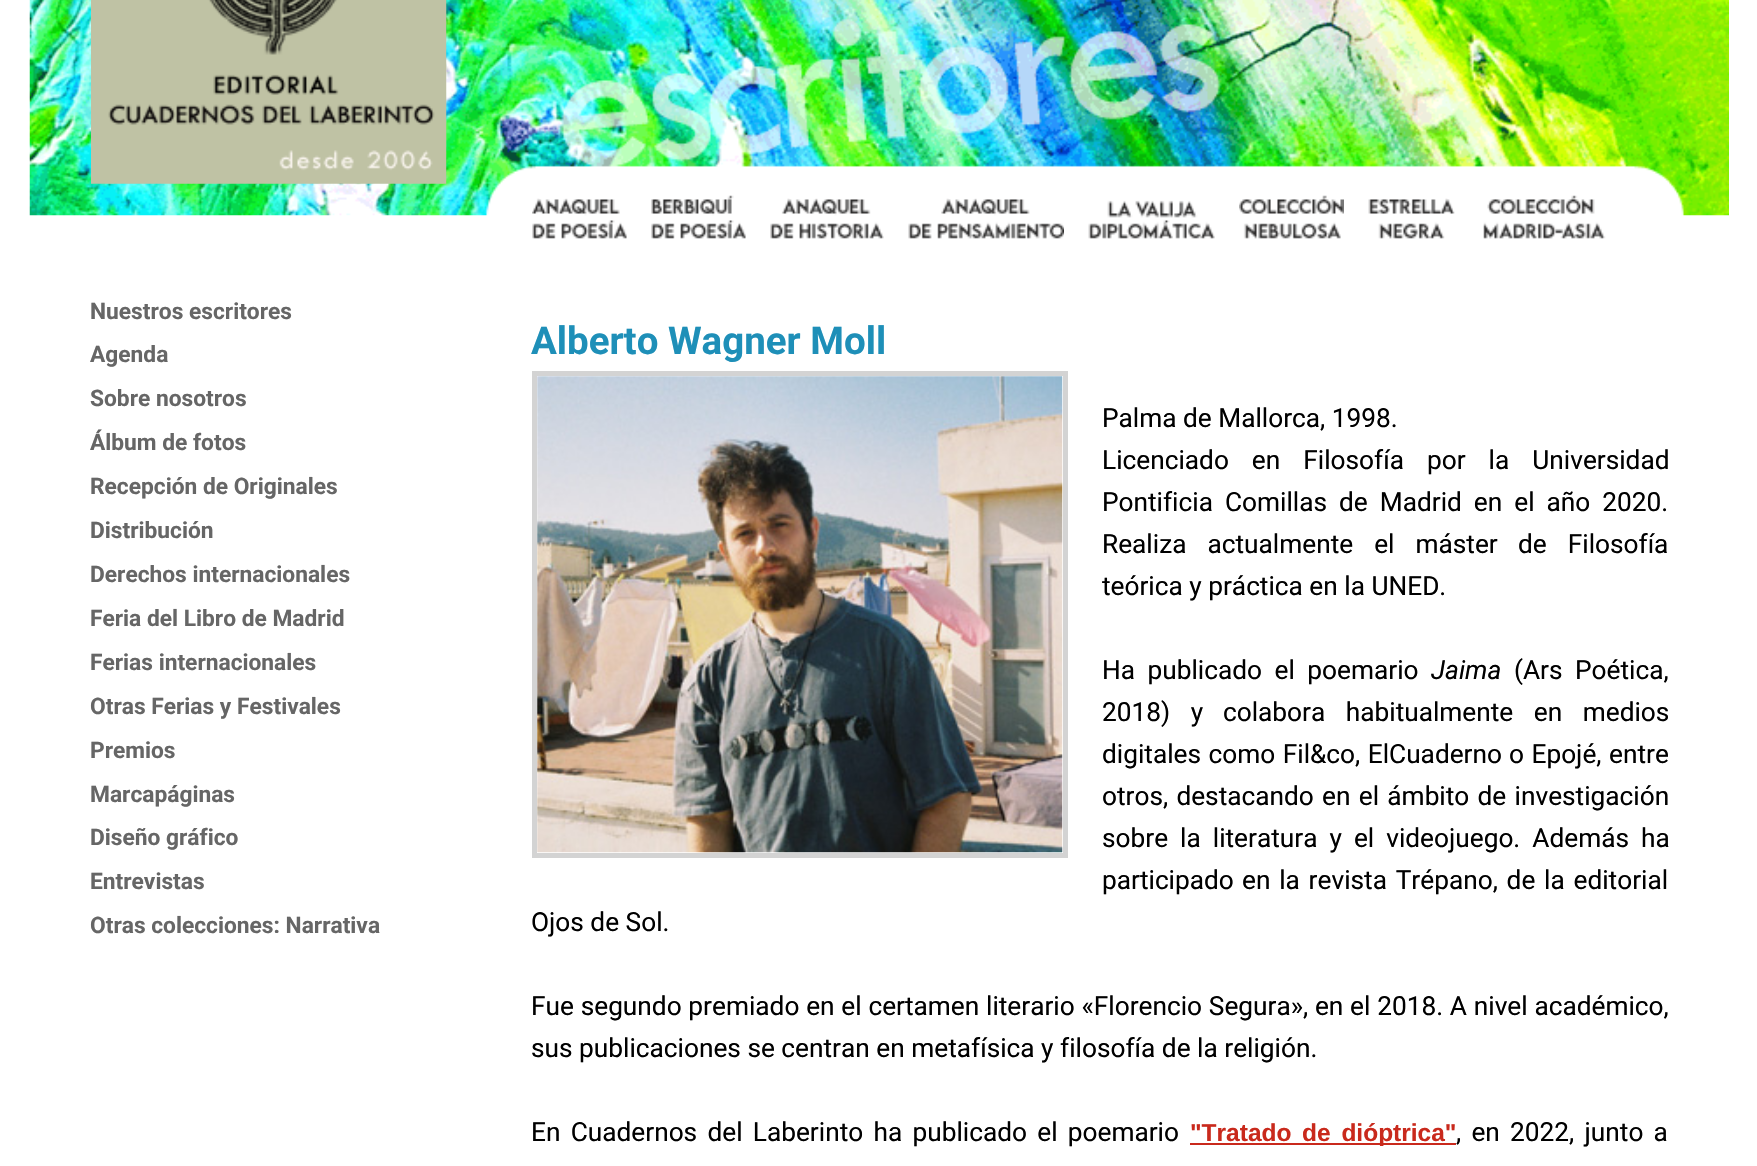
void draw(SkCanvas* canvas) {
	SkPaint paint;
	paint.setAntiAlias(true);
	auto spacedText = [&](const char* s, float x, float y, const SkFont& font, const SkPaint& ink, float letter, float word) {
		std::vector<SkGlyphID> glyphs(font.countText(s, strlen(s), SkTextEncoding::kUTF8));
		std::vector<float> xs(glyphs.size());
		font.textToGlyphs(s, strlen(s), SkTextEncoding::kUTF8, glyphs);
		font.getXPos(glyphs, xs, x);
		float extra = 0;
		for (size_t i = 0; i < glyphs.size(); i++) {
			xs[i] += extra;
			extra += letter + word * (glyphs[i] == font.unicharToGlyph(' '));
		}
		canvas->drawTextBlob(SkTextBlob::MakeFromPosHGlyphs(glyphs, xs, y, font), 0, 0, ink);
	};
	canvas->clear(0xffffffff);
	canvas->drawImageRect(SkImages::DeferredFromEncodedData(SkData::MakeFromFileName("img2.png")), SkRect::MakeXYWH(29, 0, 1700, 216), SkSamplingOptions());
	canvas->drawImageRect(SkImages::DeferredFromEncodedData(SkData::MakeFromFileName("img1.png")), SkRect::MakeXYWH(91, 0, 356, 184), SkSamplingOptions());
	canvas->drawImageRect(SkImages::DeferredFromEncodedData(SkData::MakeFromFileName("img3.png")), SkRect::MakeXYWH(532, 198, 95, 41), SkSamplingOptions());
	canvas->drawImageRect(SkImages::DeferredFromEncodedData(SkData::MakeFromFileName("img4.png")), SkRect::MakeXYWH(651, 195, 95, 44), SkSamplingOptions());
	canvas->drawImageRect(SkImages::DeferredFromEncodedData(SkData::MakeFromFileName("img5.png")), SkRect::MakeXYWH(770, 198, 114, 41), SkSamplingOptions());
	canvas->drawImageRect(SkImages::DeferredFromEncodedData(SkData::MakeFromFileName("img6.png")), SkRect::MakeXYWH(908, 198, 156, 41), SkSamplingOptions());
	canvas->drawImageRect(SkImages::DeferredFromEncodedData(SkData::MakeFromFileName("img7.png")), SkRect::MakeXYWH(1088, 200, 127, 39), SkSamplingOptions());
	canvas->drawImageRect(SkImages::DeferredFromEncodedData(SkData::MakeFromFileName("img8.png")), SkRect::MakeXYWH(1239, 195, 105, 44), SkSamplingOptions());
	canvas->drawImageRect(SkImages::DeferredFromEncodedData(SkData::MakeFromFileName("img9.png")), SkRect::MakeXYWH(1368, 198, 87, 41), SkSamplingOptions());
	canvas->drawImageRect(SkImages::DeferredFromEncodedData(SkData::MakeFromFileName("img10.png")), SkRect::MakeXYWH(1483, 195, 123, 44), SkSamplingOptions());
	SkFont f1(fontMgr->matchFamilyStyle("Roboto", SkFontStyle::Bold()), 22.75);
	f1.setSubpixel(true);
	paint.setColor(0xff666666);
	canvas->drawString("Nuestros escritores", 90, 319, f1, paint);
	canvas->drawString("Agenda", 90, 362, f1, paint);
	canvas->drawString("Sobre nosotros", 90, 406, f1, paint);
	canvas->drawString("Álbum de fotos", 90, 450, f1, paint);
	canvas->drawString("Recepción de Originales", 90, 494, f1, paint);
	canvas->drawString("Distribución", 90, 538, f1, paint);
	canvas->drawString("Derechos internacionales", 90, 582, f1, paint);
	canvas->drawString("Feria del Libro de Madrid", 90, 626, f1, paint);
	canvas->drawString("Ferias internacionales", 90, 670, f1, paint);
	canvas->drawString("Otras Ferias y Festivales", 90, 714, f1, paint);
	canvas->drawString("Premios", 90, 758, f1, paint);
	canvas->drawString("Marcapáginas", 90, 802, f1, paint);
	canvas->drawString("Diseño gráfico", 90, 845, f1, paint);
	canvas->drawString("Entrevistas", 90, 889, f1, paint);
	canvas->drawString("Otras colecciones: Narrativa", 90, 933, f1, paint);
	SkFont f2(fontMgr->matchFamilyStyle("Roboto", SkFontStyle::Bold()), 38.5);
	f2.setSubpixel(true);
	paint.setColor(0xff1e8fb8);
	canvas->drawString("Alberto Wagner Moll", 531, 354, f2, paint);
	paint.setStroke(true);
	paint.setStrokeWidth(5);
	paint.setColor(0xffd3d3d3);
	canvas->drawRect(SkRect::MakeXYWH(534.5, 373.5, 531, 482), paint);
	canvas->drawImageRect(SkImages::DeferredFromEncodedData(SkData::MakeFromFileName("img11.png")), SkRect::MakeXYWH(537, 376, 526, 477), SkSamplingOptions());
	SkFont f3(fontMgr->matchFamilyStyle("Roboto", SkFontStyle::Normal()), 26.25);
	f3.setSubpixel(true);
	paint.setStroke(false);
	paint.setColor(0xff000000);
	canvas->drawString("Palma de Mallorca, 1998.", 1102, 427, f3, paint);
	spacedText("Licenciado en Filosofía por la Universidad", 1102, 469, f3, paint, 0, 16.5);
	spacedText("Pontificia Comillas", 1102, 511, f3, paint, 0, 5.5);
	spacedText("de Madrid en el año 2020.", 1339, 511, f3, paint, 0, 5.5);
	spacedText("Realiza actualmente el máster", 1102, 553, f3, paint, 0, 14.5);
	spacedText("de Filosofía", 1518, 553, f3, paint, 0, 14.5);
	canvas->drawString("teórica y práctica en la UNED.", 1102, 595, f3, paint);
	spacedText("Ha publicado el poemario", 1102, 679, f3, paint, 0, 6);
	SkFont f4(fontMgr->matchFamilyStyle("Roboto", SkFontStyle::Italic()), 26.25);
	f4.setSubpixel(true);
	canvas->drawString("Jaima", 1431, 679, f4, paint);
	spacedText("(Ars Poética,", 1514, 679, f3, paint, 0, 6);
	spacedText("2018) y", 1102, 721, f3, paint, 0, 14);
	spacedText("colabora habitualmente en medios", 1223, 721, f3, paint, 0, 14);
	spacedText("digitales como Fil&co, ElCuaderno", 1102, 763, f3, paint, 0, 1);
	spacedText("o Epojé, entre", 1509, 763, f3, paint, 0, 1);
	spacedText("otros, destacando en el ámbito de investigación", 1102, 805, f3, paint, 0, 1.75);
	spacedText("sobre la literatura y el videojuego. Además ha", 1102, 847, f3, paint, 0, 5.5);
	canvas->drawString("participado", 1102, 889, f3, paint);
	spacedText("en la revista Trépano, de la editorial", 1242, 889, f3, paint, 0, 2.25);
	canvas->drawString("Ojos de Sol.", 531, 931, f3, paint);
	spacedText("Fue segundo premiado en el certamen literario «Florencio Segura», en el 2018. A nivel académico,", 531, 1015, f3, paint, 0, 0.25);
	canvas->drawString("sus publicaciones se centran en metafísica y filosofía de la religión.", 531, 1057, f3, paint);
	spacedText("En Cuadernos del Laberinto ha publicado el poemario", 531, 1141, f3, paint, 0, 3.75);
	SkFont f5(fontMgr->matchFamilyStyle("Liberation Sans", SkFontStyle::Bold()), 24.5);
	f5.setSubpixel(true);
	paint.setColor(0xffc9291c);
	canvas->drawString("\"Tratado", 1190, 1141, f5, paint);
	canvas->drawRect(SkRect::MakeXYWH(1190, 1143, 266, 2), paint);
	spacedText("de dióptrica\"", 1302, 1141, f5, paint, 0, 4);
	paint.setColor(0xff000000);
	spacedText(", en 2022, junto a", 1456, 1141, f3, paint, 0, 3.75);
}
